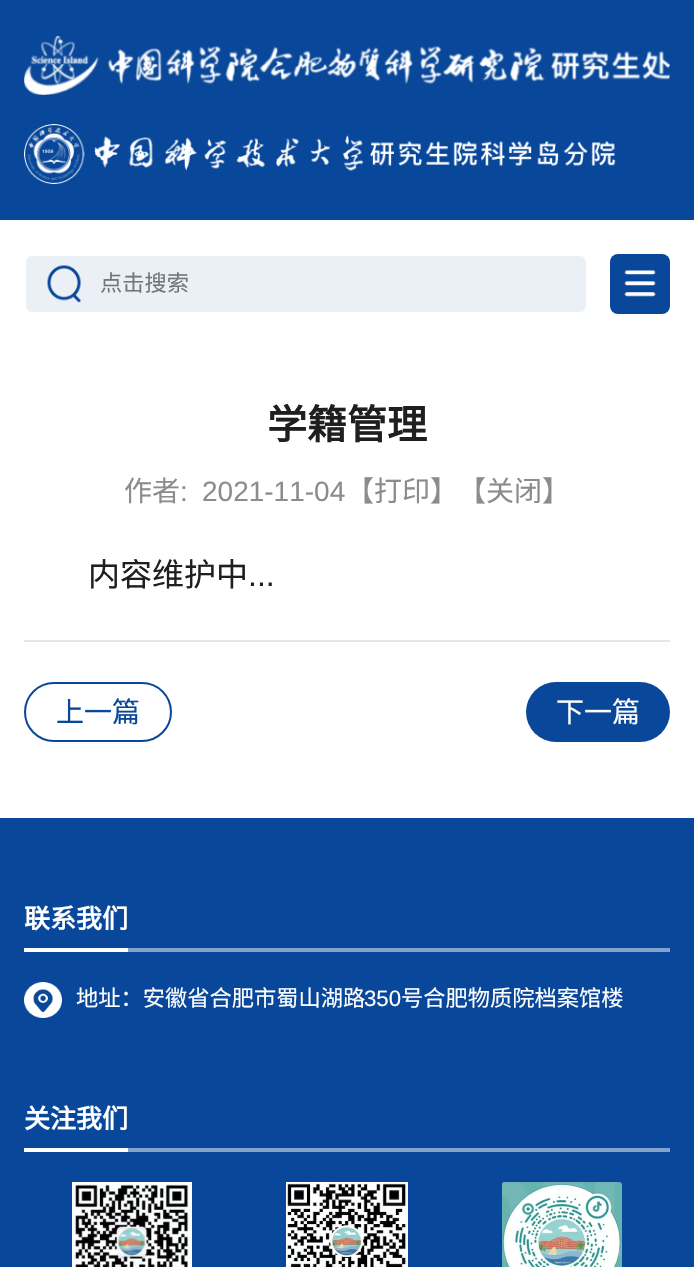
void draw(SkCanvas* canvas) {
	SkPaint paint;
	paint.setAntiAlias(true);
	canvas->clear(0xffffffff);
	paint.setColor(0xff084799);
	canvas->drawRect(SkRect::MakeXYWH(0, 0, 694, 220), paint);
	canvas->drawImageRect(SkImages::DeferredFromEncodedData(SkData::MakeFromFileName("img1.png")), SkRect::MakeXYWH(24, 36, 646, 148), SkSamplingOptions());
	paint.setColor(0xffebf0f7);
	canvas->drawRoundRect(SkRect::MakeXYWH(25, 255, 562, 58), 7, 7, paint);
	paint.setStroke(true);
	paint.setStrokeWidth(2);
	paint.setColor(0xffffffff);
	canvas->drawRoundRect(SkRect::MakeXYWH(25, 255, 562, 58), 7, 7, paint);
	canvas->drawImageRect(SkImages::DeferredFromEncodedData(SkData::MakeFromFileName("img2.png")), SkRect::MakeXYWH(47, 265, 34, 38), SkSamplingOptions());
	SkFont f1(fontMgr->matchFamilyStyle("Noto Sans CJK SC", SkFontStyle::Normal()), 22.25);
	f1.setSubpixel(true);
	paint.setStroke(false);
	paint.setColor(0xff71787a);
	canvas->drawString("点击搜索", 100, 291, f1, paint);
	paint.setColor(0xff084799);
	canvas->drawRoundRect(SkRect::MakeXYWH(610, 254, 60, 60), 8, 8, paint);
	canvas->drawImageRect(SkImages::DeferredFromEncodedData(SkData::MakeFromFileName("img3.png")), SkRect::MakeXYWH(624, 270, 32, 27), SkSamplingOptions());
	SkFont f2(fontMgr->matchFamilyStyle("Noto Sans CJK SC", SkFontStyle::Bold()), 40);
	f2.setSubpixel(true);
	paint.setColor(0xff1f1f1f);
	canvas->drawString("学籍管理", 267, 439, f2, paint);
	SkFont f3(fontMgr->matchFamilyStyle("Noto Sans CJK SC", SkFontStyle::Normal()), 28);
	f3.setSubpixel(true);
	paint.setColor(0xff8c8c8c);
	canvas->drawString("作者", 124, 501, f3, paint);
	SkFont f4(fontMgr->matchFamilyStyle("Liberation Sans", SkFontStyle::Normal()), 28);
	f4.setSubpixel(true);
	canvas->drawString(":", 180, 501, f4, paint);
	canvas->drawString("2021-11-04", 202, 501, f4, paint);
	canvas->drawString("【打印】【关闭】", 346, 501, f3, paint);
	paint.setColor(0xffe6e6e6);
	canvas->drawRect(SkRect::MakeXYWH(24, 640, 646, 2), paint);
	SkFont f5(fontMgr->matchFamilyStyle("Noto Sans CJK SC", SkFontStyle::Normal()), 32);
	f5.setSubpixel(true);
	paint.setColor(0xff1f1f1f);
	canvas->drawString("内容维护中", 88, 586, f5, paint);
	SkFont f6(fontMgr->matchFamilyStyle("Liberation Sans", SkFontStyle::Normal()), 32);
	f6.setSubpixel(true);
	canvas->drawString("...", 248, 586, f6, paint);
	paint.setStroke(true);
	paint.setColor(0xff084799);
	canvas->drawRoundRect(SkRect::MakeXYWH(25, 683, 146, 58), 29, 29, paint);
	paint.setStroke(false);
	canvas->drawString("上一篇", 56, 722, f3, paint);
	canvas->drawRoundRect(SkRect::MakeXYWH(526, 682, 144, 60), 30, 30, paint);
	paint.setColor(0xffffffff);
	canvas->drawString("下一篇", 556, 722, f3, paint);
	paint.setColor(0xff084799);
	canvas->drawRect(SkRect::MakeXYWH(0, 818, 694, 449), paint);
	paint.setColor(0xff84a3cc);
	canvas->drawRect(SkRect::MakeXYWH(128, 948, 542, 4), paint);
	SkFont f7(fontMgr->matchFamilyStyle("Noto Sans CJK SC", SkFontStyle::Bold()), 26);
	f7.setSubpixel(true);
	paint.setColor(0xffffffff);
	canvas->drawString("联系我们", 24, 928, f7, paint);
	canvas->drawRect(SkRect::MakeXYWH(24, 948, 104, 4), paint);
	canvas->drawImageRect(SkImages::DeferredFromEncodedData(SkData::MakeFromFileName("img4.png")), SkRect::MakeXYWH(24, 982, 38, 36), SkSamplingOptions());
	canvas->drawString("地址：安徽省合肥市蜀山湖路", 76, 1006, f1, paint);
	SkFont f8(fontMgr->matchFamilyStyle("Liberation Sans", SkFontStyle::Normal()), 22.25);
	f8.setSubpixel(true);
	canvas->drawString("350", 364, 1006, f8, paint);
	canvas->drawString("号合肥物质院档案馆楼", 401, 1006, f1, paint);
	paint.setColor(0xff84a3cc);
	canvas->drawRect(SkRect::MakeXYWH(128, 1148, 542, 4), paint);
	paint.setColor(0xffffffff);
	canvas->drawString("关注我们", 24, 1128, f7, paint);
	canvas->drawRect(SkRect::MakeXYWH(24, 1148, 104, 4), paint);
	canvas->drawImageRect(SkImages::DeferredFromEncodedData(SkData::MakeFromFileName("img5.png")), SkRect::MakeXYWH(72, 1182, 120, 85), SkSamplingOptions());
	canvas->drawImageRect(SkImages::DeferredFromEncodedData(SkData::MakeFromFileName("img6.png")), SkRect::MakeXYWH(286, 1182, 122, 85), SkSamplingOptions());
	canvas->drawImageRect(SkImages::DeferredFromEncodedData(SkData::MakeFromFileName("img7.png")), SkRect::MakeXYWH(502, 1182, 120, 85), SkSamplingOptions());
}
